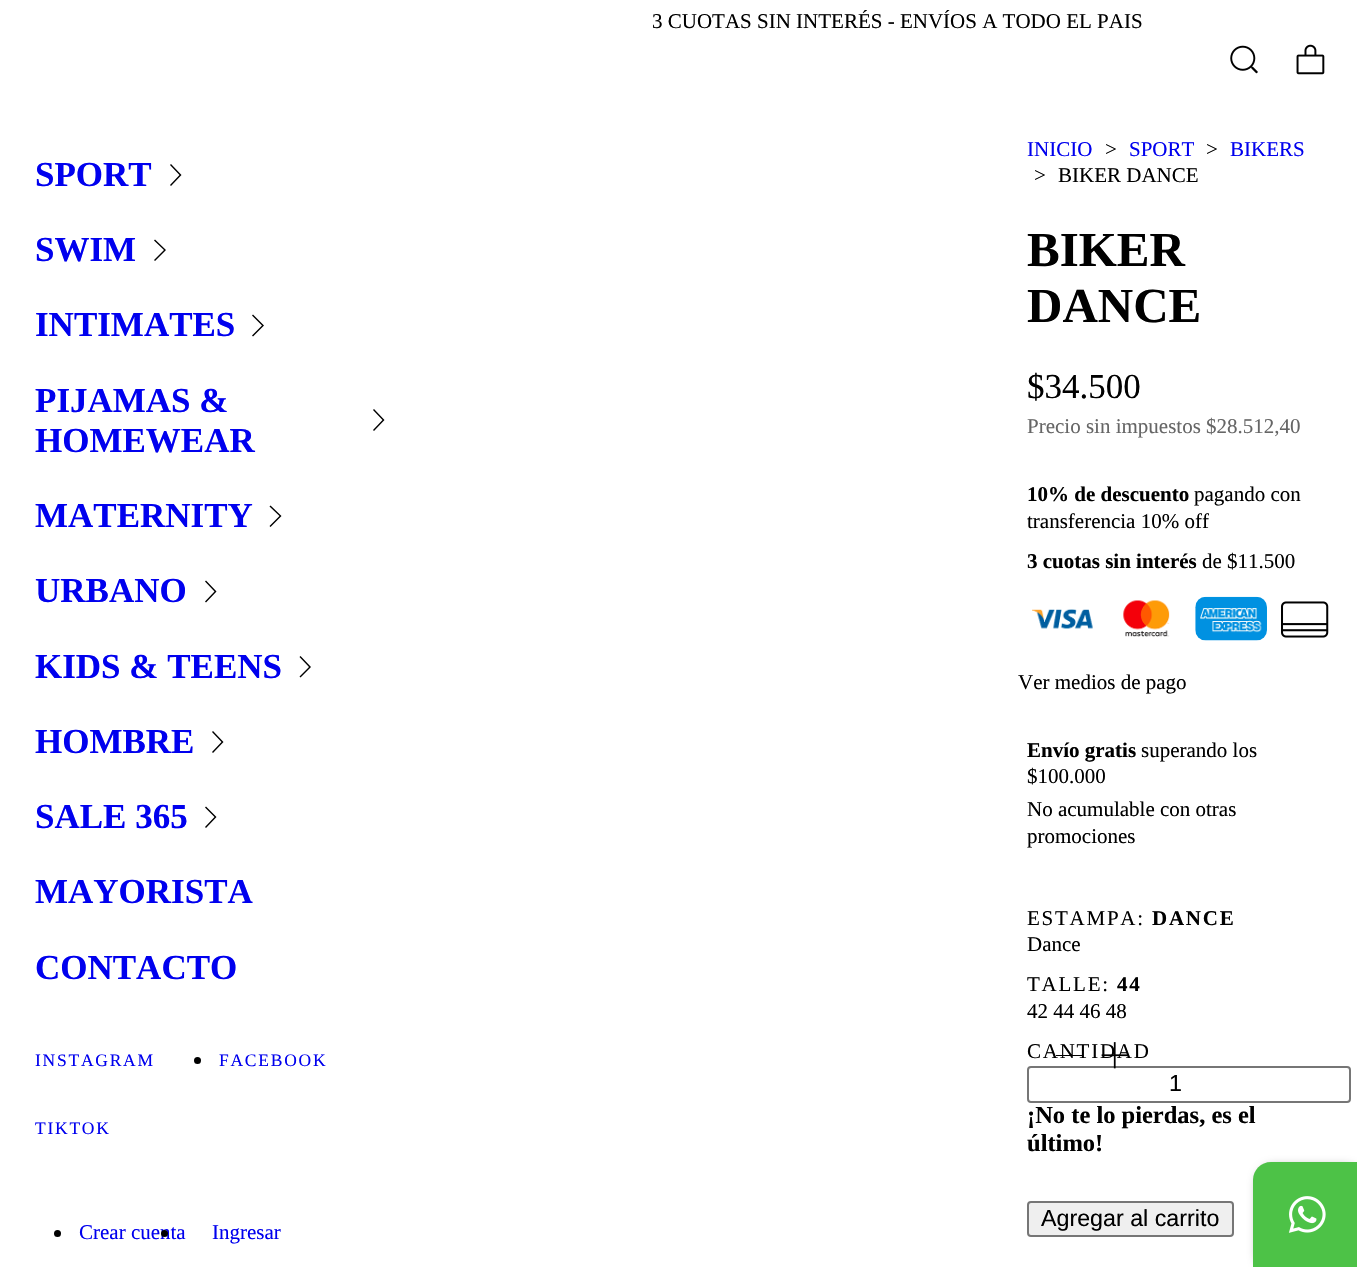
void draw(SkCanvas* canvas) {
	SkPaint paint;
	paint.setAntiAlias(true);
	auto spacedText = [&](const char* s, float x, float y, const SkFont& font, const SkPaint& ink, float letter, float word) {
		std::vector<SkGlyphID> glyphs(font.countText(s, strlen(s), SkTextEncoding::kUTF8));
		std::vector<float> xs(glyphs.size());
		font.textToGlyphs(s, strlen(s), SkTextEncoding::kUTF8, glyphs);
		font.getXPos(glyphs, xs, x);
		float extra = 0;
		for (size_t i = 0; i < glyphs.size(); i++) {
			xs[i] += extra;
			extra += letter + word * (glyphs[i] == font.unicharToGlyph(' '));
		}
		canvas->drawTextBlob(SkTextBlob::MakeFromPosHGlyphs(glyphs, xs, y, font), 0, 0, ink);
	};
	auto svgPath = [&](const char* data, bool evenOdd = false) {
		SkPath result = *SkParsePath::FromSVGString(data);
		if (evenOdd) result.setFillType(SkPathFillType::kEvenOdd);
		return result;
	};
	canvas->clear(0xffffffff);
	SkFont f1(fontMgr->matchFamilyStyle("Liberation Serif", SkFontStyle::Normal()), 21);
	f1.setSubpixel(true);
	paint.setColor(0xff000000);
	canvas->drawString("3 CUOTAS SIN INTERÉS - ENVÍOS A TODO EL PAIS", 652, 28, f1, paint);
	paint.setColor(0xff0000ee);
	canvas->drawString("INICIO", 1027, 156, f1, paint);
	paint.setColor(0xff000000);
	canvas->drawString(">", 1105, 156, f1, paint);
	paint.setColor(0xff0000ee);
	canvas->drawString("SPORT", 1129, 156, f1, paint);
	paint.setColor(0xff000000);
	canvas->drawString(">", 1206, 156, f1, paint);
	paint.setColor(0xff0000ee);
	canvas->drawString("BIKERS", 1230, 156, f1, paint);
	paint.setColor(0xff000000);
	canvas->drawString(">", 1034, 182, f1, paint);
	canvas->drawString("BIKER DANCE", 1058, 182, f1, paint);
	SkFont f2(fontMgr->matchFamilyStyle("Liberation Serif", SkFontStyle::Bold()), 49);
	f2.setSubpixel(true);
	canvas->drawString("BIKER", 1027, 266, f2, paint);
	canvas->drawString("DANCE", 1027, 322, f2, paint);
	SkFont f3(fontMgr->matchFamilyStyle("Liberation Serif", SkFontStyle::Normal()), 35);
	f3.setSubpixel(true);
	canvas->drawString("$34.500", 1027, 398, f3, paint);
	paint.setColor(0xff666666);
	canvas->drawString("Precio sin impuestos $28.512,40", 1027, 433, f1, paint);
	SkFont f4(fontMgr->matchFamilyStyle("Liberation Serif", SkFontStyle::Bold()), 21);
	f4.setSubpixel(true);
	paint.setColor(0xff000000);
	canvas->drawString("10% de descuento", 1027, 501, f4, paint);
	canvas->drawString("pagando con", 1194, 501, f1, paint);
	canvas->drawString("transferencia 10% off", 1027, 528, f1, paint);
	canvas->drawString("3 cuotas sin interés", 1027, 568, f4, paint);
	canvas->drawString("de $11.500", 1202, 568, f1, paint);
	canvas->drawImageRect(SkImages::DeferredFromEncodedData(SkData::MakeFromFileName("img1.png")), SkRect::MakeXYWH(1032, 609, 61, 20), SkSamplingOptions());
	canvas->drawImageRect(SkImages::DeferredFromEncodedData(SkData::MakeFromFileName("img2.png")), SkRect::MakeXYWH(1123, 600, 47, 37), SkSamplingOptions());
	canvas->drawImageRect(SkImages::DeferredFromEncodedData(SkData::MakeFromFileName("img3.png")), SkRect::MakeXYWH(1195, 596, 72, 45), SkSamplingOptions());
	canvas->drawImageRect(SkImages::DeferredFromEncodedData(SkData::MakeFromFileName("img4.png")), SkRect::MakeXYWH(1281, 601, 48, 37), SkSamplingOptions());
	canvas->drawString("Ver medios de pago", 1018, 689, f1, paint);
	canvas->drawString("Envío gratis", 1027, 757, f4, paint);
	canvas->drawString("superando los", 1141, 757, f1, paint);
	canvas->drawString("$100.000", 1027, 783, f1, paint);
	canvas->drawString("No acumulable con otras", 1027, 816, f1, paint);
	canvas->drawString("promociones", 1027, 843, f1, paint);
	spacedText("ESTAMPA:", 1027, 925, f1, paint, 1.75, 0);
	spacedText("DANCE", 1152, 925, f4, paint, 1.75, 0);
	canvas->drawString("Dance", 1027, 951, f1, paint);
	spacedText("TALLE:", 1027, 991, f1, paint, 1.75, 0);
	spacedText("44", 1117, 991, f4, paint, 1.75, 0);
	canvas->drawString("42 44 46 48", 1027, 1018, f1, paint);
	spacedText("CANTIDAD", 1027, 1058, f1, paint, 1.75, 0);
	paint.setStroke(true);
	paint.setStrokeWidth(2);
	paint.setColor(0xff767676);
	canvas->drawRoundRect(SkRect::MakeXYWH(1028, 1067, 322, 35), 3, 3, paint);
	canvas->drawImageRect(SkImages::DeferredFromEncodedData(SkData::MakeFromFileName("img5.png")), SkRect::MakeXYWH(1101, 1042, 27, 27), SkSamplingOptions());
	paint.setStroke(false);
	paint.setColor(0xff000000);
	canvas->drawRect(SkRect::MakeXYWH(1056, 1055, 27, 1), paint);
	SkFont f5(fontMgr->matchFamilyStyle("Liberation Sans", SkFontStyle::Normal()), 23.25);
	f5.setSubpixel(true);
	canvas->drawString("1", 1169, 1091, f5, paint);
	SkFont f6(fontMgr->matchFamilyStyle("Liberation Serif", SkFontStyle::Bold()), 24.5);
	f6.setSubpixel(true);
	canvas->drawString("¡No te lo pierdas, es el", 1027, 1123, f6, paint);
	canvas->drawString("último!", 1027, 1151, f6, paint);
	paint.setColor(0xffefefef);
	canvas->drawRoundRect(SkRect::MakeXYWH(1028, 1202, 205, 34), 3, 3, paint);
	paint.setStroke(true);
	paint.setColor(0xff767676);
	canvas->drawRoundRect(SkRect::MakeXYWH(1028, 1202, 205, 34), 3, 3, paint);
	paint.setStroke(false);
	paint.setColor(0xff000000);
	canvas->drawString("Agregar al carrito", 1041, 1226, f5, paint);
	canvas->drawImageRect(SkImages::DeferredFromEncodedData(SkData::MakeFromFileName("img6.png")), SkRect::MakeXYWH(1230, 45, 28, 29), SkSamplingOptions());
	canvas->drawImageRect(SkImages::DeferredFromEncodedData(SkData::MakeFromFileName("img7.png")), SkRect::MakeXYWH(1296, 44, 29, 31), SkSamplingOptions());
	SkFont f7(fontMgr->matchFamilyStyle("Liberation Serif", SkFontStyle::Bold()), 35);
	f7.setSubpixel(true);
	paint.setColor(0xff0000ee);
	canvas->drawString("SPORT", 35, 186, f7, paint);
	paint.setColor(0xff000000);
	canvas->drawPath(svgPath("M171 186L170 185L179.5 175L170 165L171 164L181.5 175Z"), paint);
	paint.setColor(0xff0000ee);
	canvas->drawString("SWIM", 35, 261, f7, paint);
	paint.setColor(0xff000000);
	canvas->drawPath(svgPath("M155 261L154 260L164 250L154 240.5L155 239.5L166 250Z"), paint);
	paint.setColor(0xff0000ee);
	canvas->drawString("INTIMATES", 35, 336, f7, paint);
	paint.setColor(0xff000000);
	canvas->drawPath(svgPath("M253 336.5L252 335.5L262 325.5L252 315.5L253 314.5L264 325.5Z"), paint);
	paint.setColor(0xff0000ee);
	canvas->drawString("PIJAMAS &", 35, 412, f7, paint);
	paint.setColor(0xff000000);
	canvas->drawPath(svgPath("M374 431L373 430L382.5 420L373 410L374 409L384.5 420Z"), paint);
	paint.setColor(0xff0000ee);
	canvas->drawString("HOMEWEAR", 35, 452, f7, paint);
	canvas->drawString("MATERNITY", 35, 527, f7, paint);
	paint.setColor(0xff000000);
	canvas->drawPath(svgPath("M270.5 527L269.5 526L279.5 516L269.5 506.5L270.5 505.5L281.5 516Z"), paint);
	paint.setColor(0xff0000ee);
	canvas->drawString("URBANO", 35, 602, f7, paint);
	paint.setColor(0xff000000);
	canvas->drawPath(svgPath("M206 602.5L205 601.5L214.5 591.5L205 581.5L206 580.5L216.5 591.5Z"), paint);
	paint.setColor(0xff0000ee);
	canvas->drawString("KIDS & TEENS", 35, 678, f7, paint);
	paint.setColor(0xff000000);
	canvas->drawPath(svgPath("M300.5 677.5L299.5 676.5L309 667L299.5 657L300.5 656L311 667Z"), paint);
	paint.setColor(0xff0000ee);
	canvas->drawString("HOMBRE", 35, 753, f7, paint);
	paint.setColor(0xff000000);
	canvas->drawPath(svgPath("M213 753L212 752L221.5 742L212 732L213 731L223.5 742Z"), paint);
	paint.setColor(0xff0000ee);
	canvas->drawString("SALE 365", 35, 828, f7, paint);
	paint.setColor(0xff000000);
	canvas->drawPath(svgPath("M206 828L205 827L214.5 817L205 807.5L206 806.5L216.5 817Z"), paint);
	paint.setColor(0xff0000ee);
	canvas->drawString("MAYORISTA", 35, 903, f7, paint);
	canvas->drawString("CONTACTO", 35, 979, f7, paint);
	SkFont f8(fontMgr->matchFamilyStyle("Liberation Serif", SkFontStyle::Normal()), 17.5);
	f8.setSubpixel(true);
	spacedText("INSTAGRAM", 35, 1066, f8, paint, 1.75, 0);
	paint.setColor(0xff000000);
	canvas->drawCircle(197.5, 1060.5, 3.5, paint);
	paint.setColor(0xff0000ee);
	spacedText("FACEBOOK", 219, 1066, f8, paint, 1.75, 0);
	spacedText("TIKTOK", 35, 1134, f8, paint, 1.75, 0);
	paint.setColor(0xff000000);
	canvas->drawCircle(57.5, 1233.5, 3.5, paint);
	paint.setColor(0xff0000ee);
	canvas->drawString("Crear cuenta", 79, 1239, f1, paint);
	paint.setColor(0xff000000);
	canvas->drawCircle(164.5, 1233.5, 3.5, paint);
	paint.setColor(0xff0000ee);
	canvas->drawString("Ingresar", 212, 1239, f1, paint);
	paint.setColor(0x66000000);
	paint.setMaskFilter(SkMaskFilter::MakeBlur(kNormal_SkBlurStyle, 5));
	canvas->drawRoundRect(SkRect::MakeXYWH(1257, 1166, 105, 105), 18, 18, paint);
	paint.setMaskFilter(nullptr);
	paint.setColor(0xff4dc247);
	canvas->drawPath(svgPath("M1271 1162H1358V1267H1253V1180C1253 1170 1261 1162 1271 1162Z"), paint);
	canvas->drawImageRect(SkImages::DeferredFromEncodedData(SkData::MakeFromFileName("img8.png")), SkRect::MakeXYWH(1288, 1196, 38, 37), SkSamplingOptions());
}
